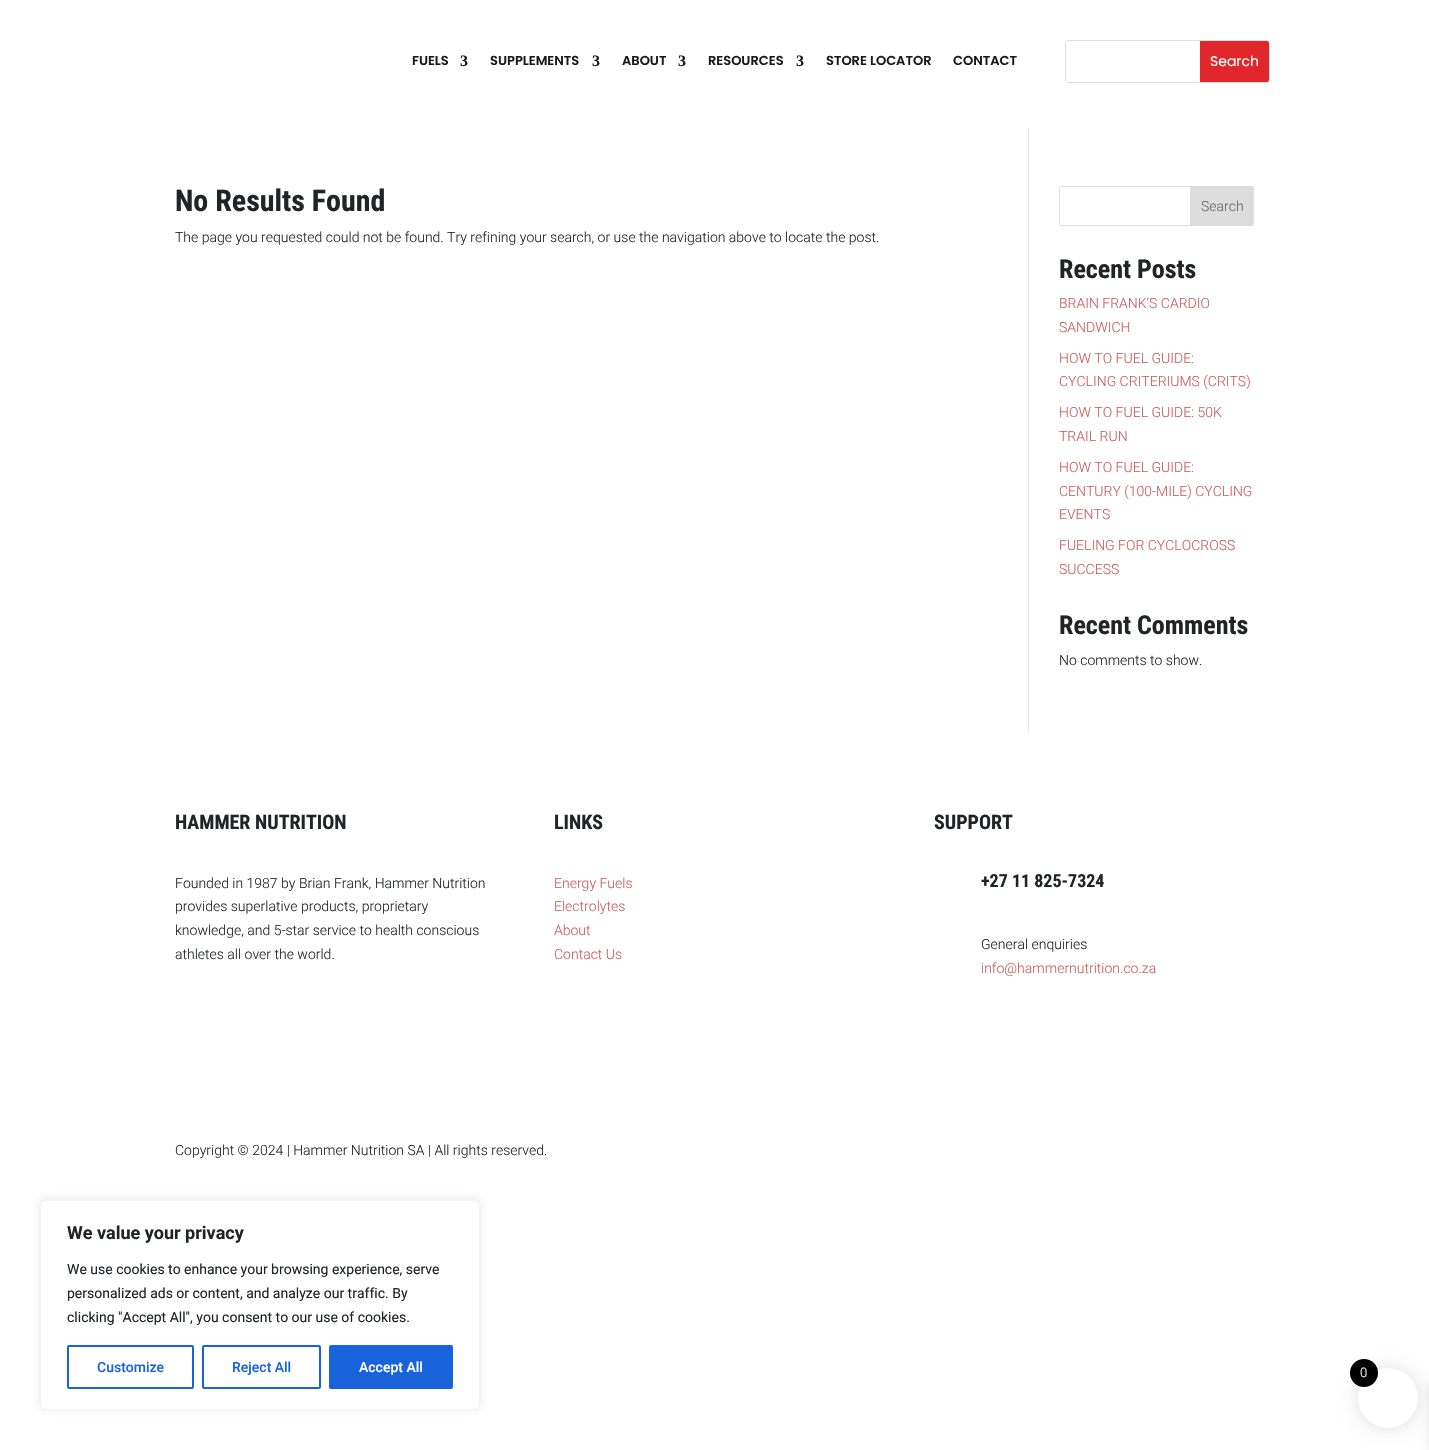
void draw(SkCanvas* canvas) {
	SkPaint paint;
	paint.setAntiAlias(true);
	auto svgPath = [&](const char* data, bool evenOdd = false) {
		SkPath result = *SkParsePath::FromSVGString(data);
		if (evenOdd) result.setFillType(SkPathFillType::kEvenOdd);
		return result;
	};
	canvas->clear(0xffffffff);
	SkFont f1(fontMgr->matchFamilyStyle("Poppins", SkFontStyle(600, SkFontStyle::kNormal_Width, SkFontStyle::kUpright_Slant)), 13);
	f1.setSubpixel(true);
	paint.setColor(0xff1a1a1a);
	canvas->drawString("FUELS", 412, 65, f1, paint);
	SkFont f2(fontMgr->matchFamilyStyle("Liberation Serif", SkFontStyle::Bold()), 16);
	f2.setSubpixel(true);
	canvas->drawString("3", 460, 66, f2, paint);
	canvas->drawString("SUPPLEMENTS", 490, 65, f1, paint);
	canvas->drawString("3", 592, 66, f2, paint);
	canvas->drawString("ABOUT", 622, 65, f1, paint);
	canvas->drawString("3", 678, 66, f2, paint);
	canvas->drawString("RESOURCES", 708, 65, f1, paint);
	canvas->drawString("3", 796, 66, f2, paint);
	canvas->drawString("STORE LOCATOR", 826, 65, f1, paint);
	canvas->drawString("CONTACT", 953, 65, f1, paint);
	paint.setStroke(true);
	paint.setStrokeWidth(1);
	paint.setColor(0xffdddddd);
	canvas->drawRoundRect(SkRect::MakeXYWH(1065.5, 40.5, 204, 42), 2.5, 2.5, paint);
	paint.setStroke(false);
	paint.setColor(0xffe1262b);
	canvas->drawPath(svgPath("M1200 41H1267C1268 41 1269 42 1269 43V80C1269 81 1268 82 1267 82H1200Z"), paint);
	SkFont f3(fontMgr->matchFamilyStyle("Poppins", SkFontStyle::Normal()), 14);
	f3.setSubpixel(true);
	paint.setColor(0xffffffff);
	canvas->drawString("Search", 1210, 66, f3, paint);
	paint.setColor(0xffe2e2e2);
	canvas->drawRect(SkRect::MakeXYWH(1028, 128, 1, 603), paint);
	SkFont f4(fontMgr->matchFamilyStyle("Roboto Condensed", SkFontStyle::Bold()), 30);
	f4.setSubpixel(true);
	paint.setColor(0xff212426);
	canvas->drawString("No Results Found", 175, 211, f4, paint);
	SkFont f5(fontMgr->matchFamilyStyle("Roboto", SkFontStyle(300, SkFontStyle::kNormal_Width, SkFontStyle::kUpright_Slant)), 14);
	f5.setSubpixel(true);
	canvas->drawString("The page you requested could not be found. Try refining your search, or use the navigation above to locate the post.", 175, 242, f5, paint);
	paint.setStroke(true);
	paint.setColor(0xffdddddd);
	canvas->drawRoundRect(SkRect::MakeXYWH(1059.5, 186.5, 194, 39), 2.5, 2.5, paint);
	paint.setStroke(false);
	canvas->drawPath(svgPath("M1190.5 186.5H1251C1252.5 186.5 1253.5 187.5 1253.5 189V223C1253.5 224.5 1252.5 225.5 1251 225.5H1190.5Z"), paint);
	paint.setStroke(true);
	canvas->drawPath(svgPath("M1190.5 186.5H1251C1252.5 186.5 1253.5 187.5 1253.5 189V223C1253.5 224.5 1252.5 225.5 1251 225.5H1190.5Z"), paint);
	paint.setStroke(false);
	paint.setColor(0xff666666);
	canvas->drawString("Search", 1201, 211, f5, paint);
	SkFont f6(fontMgr->matchFamilyStyle("Roboto Condensed", SkFontStyle::Bold()), 26);
	f6.setSubpixel(true);
	paint.setColor(0xff212426);
	canvas->drawString("Recent Posts", 1059, 278, f6, paint);
	paint.setColor(0xffcd5c5c);
	canvas->drawString("BRAIN FRANK’S CARDIO", 1059, 308, f5, paint);
	canvas->drawString("SANDWICH", 1059, 332, f5, paint);
	canvas->drawString("HOW TO FUEL GUIDE:", 1059, 363, f5, paint);
	canvas->drawString("CYCLING CRITERIUMS (CRITS)", 1059, 386, f5, paint);
	canvas->drawString("HOW TO FUEL GUIDE: 50K", 1059, 417, f5, paint);
	canvas->drawString("TRAIL RUN", 1059, 441, f5, paint);
	canvas->drawString("HOW TO FUEL GUIDE:", 1059, 472, f5, paint);
	canvas->drawString("CENTURY (100-MILE) CYCLING", 1059, 496, f5, paint);
	canvas->drawString("EVENTS", 1059, 519, f5, paint);
	canvas->drawString("FUELING FOR CYCLOCROSS", 1059, 550, f5, paint);
	canvas->drawString("SUCCESS", 1059, 574, f5, paint);
	paint.setColor(0xff212426);
	canvas->drawString("Recent Comments", 1059, 634, f6, paint);
	canvas->drawString("No comments to show.", 1059, 665, f5, paint);
	SkFont f7(fontMgr->matchFamilyStyle("Roboto Condensed", SkFontStyle::Bold()), 20);
	f7.setSubpixel(true);
	canvas->drawString("HAMMER NUTRITION", 175, 829, f7, paint);
	canvas->drawString("Founded in 1987 by Brian Frank, Hammer Nutrition", 175, 888, f5, paint);
	canvas->drawString("provides superlative products, proprietary", 175, 911, f5, paint);
	canvas->drawString("knowledge, and 5-star service to health conscious", 175, 935, f5, paint);
	canvas->drawString("athletes all over the world.", 175, 959, f5, paint);
	canvas->drawString("LINKS", 554, 829, f7, paint);
	paint.setColor(0xffcd5c5c);
	canvas->drawString("Energy Fuels", 554, 888, f5, paint);
	canvas->drawString("Electrolytes", 554, 911, f5, paint);
	canvas->drawString("About", 554, 935, f5, paint);
	canvas->drawString("Contact Us", 554, 959, f5, paint);
	paint.setColor(0xff212426);
	canvas->drawString("SUPPORT", 934, 829, f7, paint);
	SkFont f8(fontMgr->matchFamilyStyle("Roboto Condensed", SkFontStyle::Bold()), 18);
	f8.setSubpixel(true);
	canvas->drawString("+27 11 825-7324", 981, 887, f8, paint);
	canvas->drawString("General enquiries", 981, 949, f5, paint);
	paint.setColor(0xffcd5c5c);
	canvas->drawString("info@hammernutrition.co.za", 981, 973, f5, paint);
	paint.setColor(0xff212426);
	canvas->drawString("Copyright © 2024 | Hammer Nutrition SA | All rights reserved.", 175, 1155, f5, paint);
	paint.setColor(0x4dacabab);
	paint.setMaskFilter(SkMaskFilter::MakeBlur(kNormal_SkBlurStyle, 5));
	canvas->drawRoundRect(SkRect::MakeXYWH(40, 1199, 440, 210), 6, 6, paint);
	paint.setMaskFilter(nullptr);
	paint.setColor(0xffffffff);
	canvas->drawRoundRect(SkRect::MakeXYWH(40.5, 1200.5, 439, 209), 5.5, 5.5, paint);
	paint.setStroke(true);
	paint.setColor(0xfff4f4f4);
	canvas->drawRoundRect(SkRect::MakeXYWH(40.5, 1200.5, 439, 209), 5.5, 5.5, paint);
	SkFont f9(fontMgr->matchFamilyStyle("Roboto", SkFontStyle::Bold()), 18);
	f9.setSubpixel(true);
	paint.setStroke(false);
	paint.setColor(0xff212426);
	canvas->drawString("We value your privacy", 67, 1239, f9, paint);
	SkFont f10(fontMgr->matchFamilyStyle("Roboto", SkFontStyle::Normal()), 14);
	f10.setSubpixel(true);
	canvas->drawString("We use cookies to enhance your browsing experience, serve", 67, 1274, f10, paint);
	canvas->drawString("personalized ads or content, and analyze our traffic. By", 67, 1298, f10, paint);
	canvas->drawString("clicking \"Accept All\", you consent to our use of cookies.", 67, 1322, f10, paint);
	paint.setStroke(true);
	paint.setStrokeWidth(2);
	paint.setColor(0xff1863dc);
	canvas->drawRoundRect(SkRect::MakeXYWH(68, 1346, 125, 42), 1, 1, paint);
	SkFont f11(fontMgr->matchFamilyStyle("Roboto", SkFontStyle(500, SkFontStyle::kNormal_Width, SkFontStyle::kUpright_Slant)), 14);
	f11.setSubpixel(true);
	paint.setStroke(false);
	canvas->drawString("Customize", 97, 1372, f11, paint);
	paint.setStroke(true);
	canvas->drawRoundRect(SkRect::MakeXYWH(203, 1346, 117, 42), 1, 1, paint);
	paint.setStroke(false);
	canvas->drawString("Reject All", 232, 1372, f11, paint);
	canvas->drawRoundRect(SkRect::MakeXYWH(330, 1346, 122, 42), 1, 1, paint);
	paint.setStroke(true);
	canvas->drawRoundRect(SkRect::MakeXYWH(330, 1346, 122, 42), 1, 1, paint);
	paint.setStroke(false);
	paint.setColor(0xffffffff);
	canvas->drawString("Accept All", 359, 1372, f11, paint);
	paint.setColor(0x1a000000);
	paint.setMaskFilter(SkMaskFilter::MakeBlur(kNormal_SkBlurStyle, 7.5));
	canvas->drawRoundRect(SkRect::MakeXYWH(1356, 1366, 64, 64), 32, 32, paint);
	paint.setMaskFilter(nullptr);
	paint.setMaskFilter(SkMaskFilter::MakeBlur(kNormal_SkBlurStyle, 5));
	canvas->drawRect(SkRect::MakeXYWH(1429, 1381, 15, 68), paint);
	paint.setMaskFilter(nullptr);
	paint.setColor(0xffffffff);
	canvas->drawCircle(1388, 1398, 30, paint);
	paint.setColor(0xff000000);
	canvas->drawCircle(1364, 1373, 14, paint);
	SkFont f12(fontMgr->matchFamilyStyle("Roboto", SkFontStyle(300, SkFontStyle::kNormal_Width, SkFontStyle::kUpright_Slant)), 13);
	f12.setSubpixel(true);
	paint.setColor(0xffffffff);
	canvas->drawString("0", 1360, 1377, f12, paint);
}
